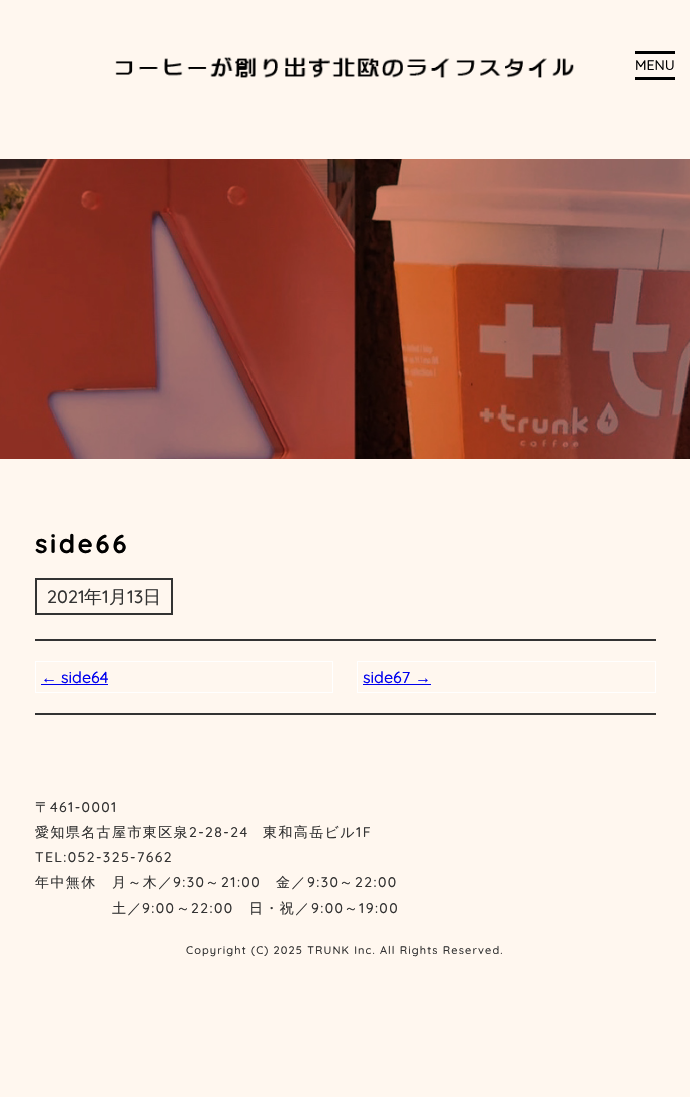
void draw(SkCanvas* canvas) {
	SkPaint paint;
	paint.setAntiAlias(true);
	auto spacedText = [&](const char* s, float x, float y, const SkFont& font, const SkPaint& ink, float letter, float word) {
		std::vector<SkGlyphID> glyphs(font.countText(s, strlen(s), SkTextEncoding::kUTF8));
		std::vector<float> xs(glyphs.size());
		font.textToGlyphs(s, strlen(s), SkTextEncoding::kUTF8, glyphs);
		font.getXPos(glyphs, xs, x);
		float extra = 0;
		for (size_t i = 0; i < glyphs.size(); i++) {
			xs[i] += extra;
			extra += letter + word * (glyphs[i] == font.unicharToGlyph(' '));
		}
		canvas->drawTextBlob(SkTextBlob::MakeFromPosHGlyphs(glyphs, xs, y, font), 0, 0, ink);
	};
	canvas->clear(0xfffff7ef);
	canvas->drawImageRect(SkImages::DeferredFromEncodedData(SkData::MakeFromFileName("img1.png")), SkRect::MakeXYWH(115, 57, 459, 21), SkSamplingOptions());
	paint.setColor(0xff000000);
	canvas->drawRect(SkRect::MakeXYWH(635, 51, 40, 3), paint);
	SkFont f1(fontMgr->matchFamilyStyle("Quicksand", SkFontStyle(500, SkFontStyle::kNormal_Width, SkFontStyle::kUpright_Slant)), 14);
	f1.setSubpixel(true);
	canvas->drawString("MENU", 635, 70, f1, paint);
	canvas->drawRect(SkRect::MakeXYWH(635, 77, 40, 3), paint);
	canvas->drawImageRect(SkImages::DeferredFromEncodedData(SkData::MakeFromFileName("img2.png")), SkRect::MakeXYWH(0, 159, 690, 300), SkSamplingOptions());
	SkFont f2(fontMgr->matchFamilyStyle("Quicksand", SkFontStyle::Bold()), 26);
	f2.setSubpixel(true);
	spacedText("side66", 35, 553, f2, paint, 2.5, 0);
	paint.setStroke(true);
	paint.setStrokeWidth(2);
	paint.setColor(0xff333333);
	canvas->drawRect(SkRect::MakeXYWH(36, 579, 136, 35), paint);
	SkFont f3(fontMgr->matchFamilyStyle("Quicksand", SkFontStyle(500, SkFontStyle::kNormal_Width, SkFontStyle::kUpright_Slant)), 18);
	f3.setSubpixel(true);
	paint.setStroke(false);
	canvas->drawString("2021", 47, 603, f3, paint);
	SkFont f4(fontMgr->matchFamilyStyle("WenQuanYi Zen Hei", SkFontStyle(500, SkFontStyle::kNormal_Width, SkFontStyle::kUpright_Slant)), 18);
	f4.setSubpixel(true);
	canvas->drawString("年", 84, 603, f4, paint);
	canvas->drawString("1", 102, 603, f3, paint);
	canvas->drawString("月", 109, 603, f4, paint);
	canvas->drawString("13", 127, 603, f3, paint);
	canvas->drawString("日", 143, 603, f4, paint);
	canvas->drawRect(SkRect::MakeXYWH(35, 639, 621, 2), paint);
	canvas->drawRect(SkRect::MakeXYWH(35, 713, 621, 2), paint);
	paint.setStroke(true);
	paint.setStrokeWidth(1);
	paint.setColor(0xffffffff);
	canvas->drawRect(SkRect::MakeXYWH(35.5, 661.5, 297, 31), paint);
	SkFont f5(fontMgr->matchFamilyStyle("Liberation Sans", SkFontStyle::Normal()), 16);
	f5.setSubpixel(true);
	paint.setStroke(false);
	paint.setColor(0xff0000ee);
	canvas->drawString("←", 41, 683, f5, paint);
	canvas->drawRect(SkRect::MakeXYWH(41, 684, 67, 1), paint);
	SkFont f6(fontMgr->matchFamilyStyle("Quicksand", SkFontStyle(500, SkFontStyle::kNormal_Width, SkFontStyle::kUpright_Slant)), 16);
	f6.setSubpixel(true);
	canvas->drawString("side64", 61, 683, f6, paint);
	paint.setStroke(true);
	paint.setColor(0xffffffff);
	canvas->drawRect(SkRect::MakeXYWH(357.5, 661.5, 298, 31), paint);
	paint.setStroke(false);
	paint.setColor(0xff0000ee);
	canvas->drawString("side67", 363, 683, f6, paint);
	canvas->drawString("→", 415, 683, f5, paint);
	canvas->drawRect(SkRect::MakeXYWH(363, 684, 68, 1), paint);
	SkFont f7(fontMgr->matchFamilyStyle("WenQuanYi Zen Hei", SkFontStyle(500, SkFontStyle::kNormal_Width, SkFontStyle::kUpright_Slant)), 14);
	f7.setSubpixel(true);
	paint.setColor(0xff333333);
	spacedText("〒", 35, 812, f7, paint, 1.4, 0);
	spacedText("461-0001", 50, 812, f1, paint, 1.4, 0);
	spacedText("愛知県名古屋市東区泉", 35, 837, f7, paint, 1.4, 0);
	spacedText("2-28-24", 189, 837, f1, paint, 1.4, 0);
	spacedText("東和高岳ビル", 263, 837, f7, paint, 1.4, 0);
	spacedText("1F", 356, 837, f1, paint, 1.4, 0);
	spacedText("TEL:052-325-7662", 35, 862, f1, paint, 1.4, 0);
	spacedText("年中無休　月～木／", 35, 887, f7, paint, 1.4, 0);
	spacedText("9:30", 173, 887, f1, paint, 1.4, 0);
	spacedText("～", 205, 887, f7, paint, 1.4, 0);
	spacedText("21:00", 221, 887, f1, paint, 1.4, 0);
	spacedText("金／", 276, 887, f7, paint, 1.4, 0);
	spacedText("9:30", 307, 887, f1, paint, 1.4, 0);
	spacedText("～", 339, 887, f7, paint, 1.4, 0);
	spacedText("22:00", 355, 887, f1, paint, 1.4, 0);
	spacedText("土／", 112, 913, f7, paint, 1.4, 0);
	spacedText("9:00", 142, 913, f1, paint, 1.4, 0);
	spacedText("～", 176, 913, f7, paint, 1.4, 0);
	spacedText("22:00", 191, 913, f1, paint, 1.4, 0);
	spacedText("日・祝／", 249, 913, f7, paint, 1.4, 0);
	spacedText("9:00", 311, 913, f1, paint, 1.4, 0);
	spacedText("～", 344, 913, f7, paint, 1.4, 0);
	spacedText("19:00", 359, 913, f1, paint, 1.4, 0);
	SkFont f8(fontMgr->matchFamilyStyle("Quicksand", SkFontStyle(500, SkFontStyle::kNormal_Width, SkFontStyle::kUpright_Slant)), 11);
	f8.setSubpixel(true);
	spacedText("Copyright (C) 2025 TRUNK Inc. All Rights Reserved.", 186, 954, f8, paint, 1.1, 0);
}
